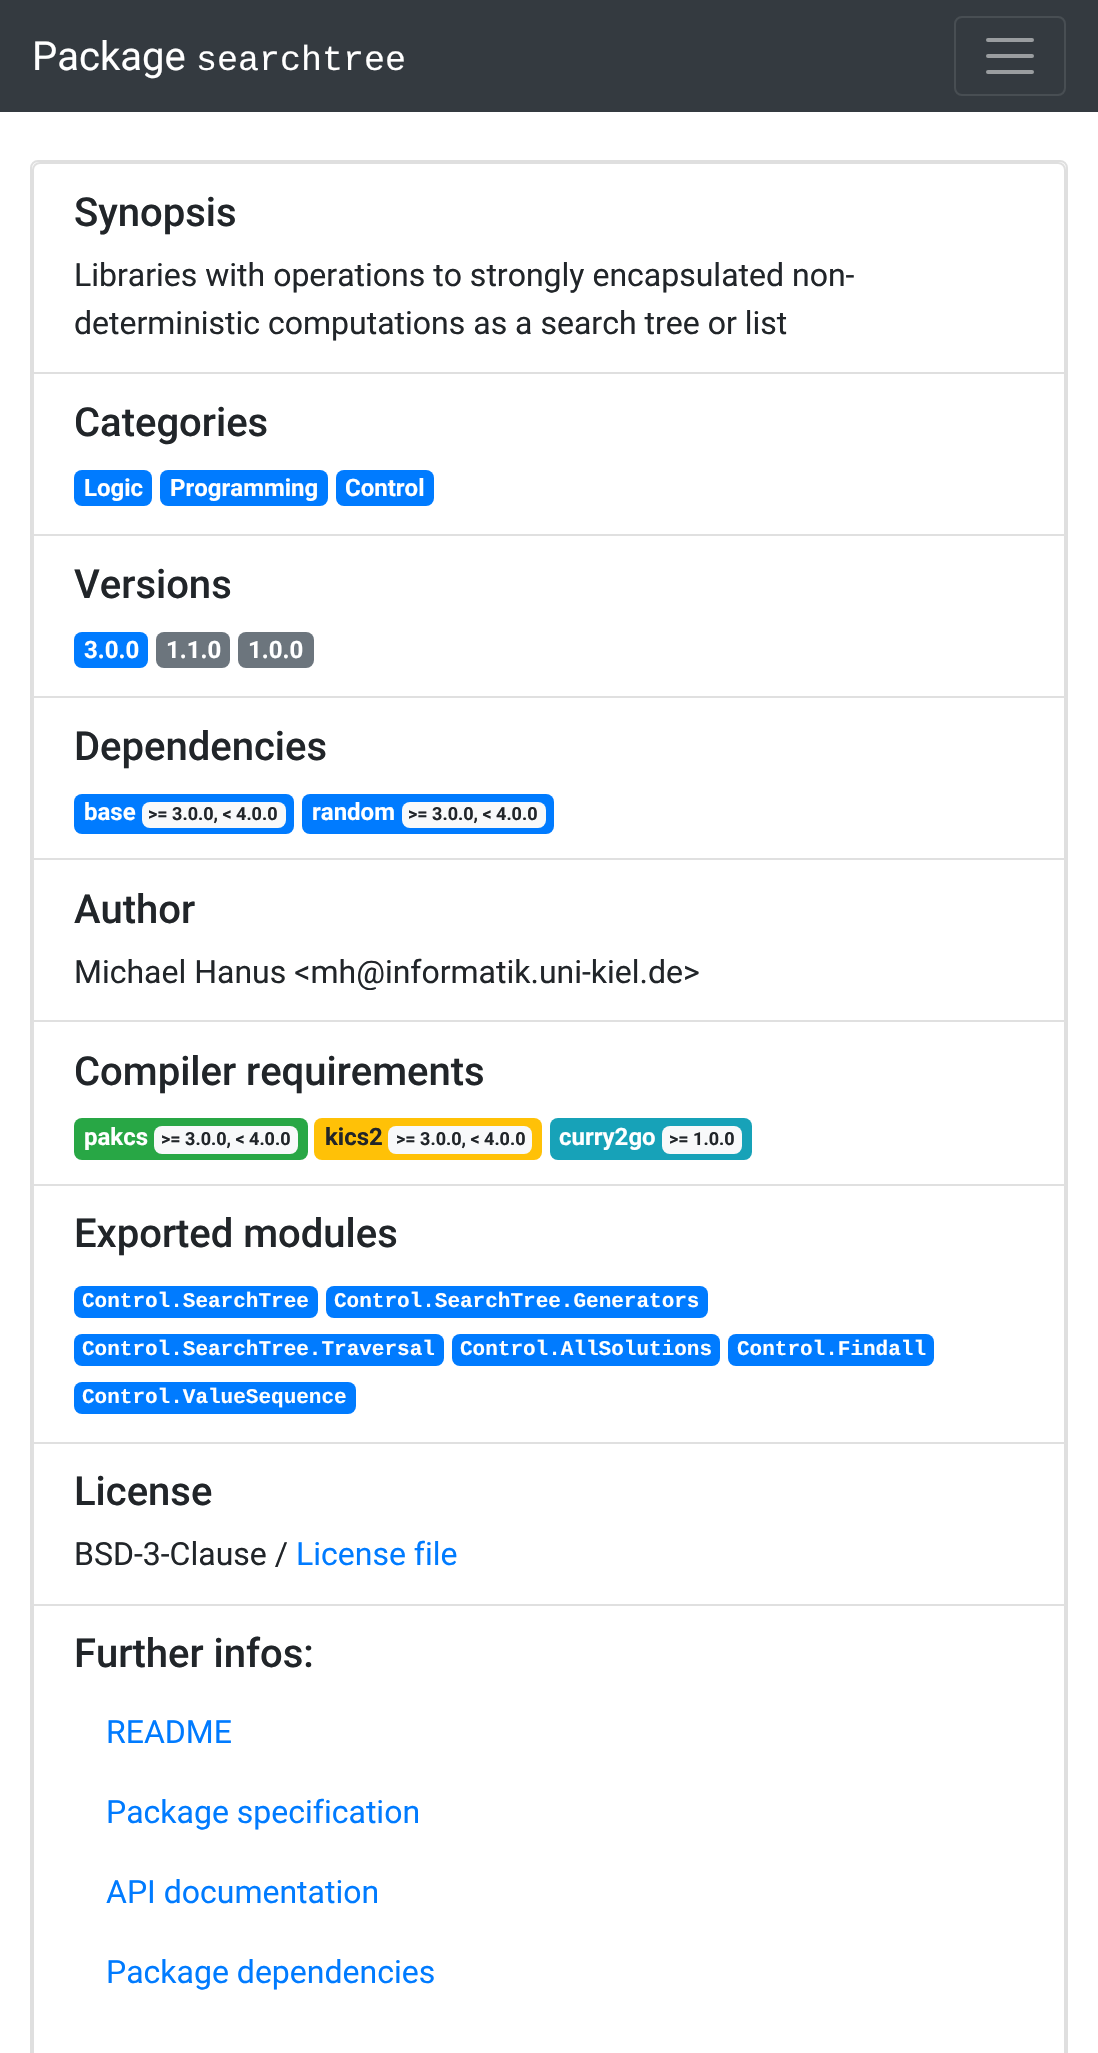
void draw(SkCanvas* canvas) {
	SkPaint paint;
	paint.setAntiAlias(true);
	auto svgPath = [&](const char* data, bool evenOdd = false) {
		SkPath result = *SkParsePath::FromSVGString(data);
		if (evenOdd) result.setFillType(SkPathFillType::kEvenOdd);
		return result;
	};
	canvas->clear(0xffffffff);
	paint.setColor(0xff343a40);
	canvas->drawRect(SkRect::MakeXYWH(0, 0, 1098, 112), paint);
	SkFont f1(fontMgr->matchFamilyStyle("Roboto", SkFontStyle::Normal()), 40);
	f1.setSubpixel(true);
	paint.setColor(0xffffffff);
	canvas->drawString("Package", 32, 70, f1, paint);
	SkFont f2(fontMgr->matchFamilyStyle("Liberation Mono", SkFontStyle::Normal()), 35);
	f2.setSubpixel(true);
	canvas->drawString("searchtree", 196, 70, f2, paint);
	paint.setStroke(true);
	paint.setStrokeWidth(2);
	paint.setColor(0xff484e53);
	canvas->drawRoundRect(SkRect::MakeXYWH(955, 17, 110, 78), 7, 7, paint);
	paint.setStrokeWidth(4);
	paint.setStrokeCap(SkPaint::kRound_Cap);
	paint.setColor(0xff9a9da0);
	canvas->drawPath(svgPath("M988 40H1032M988 56H1032M988 72H1032"), paint);
	paint.setStrokeWidth(2);
	paint.setStrokeCap(SkPaint::kButt_Cap);
	paint.setColor(0xffdfdfdf);
	canvas->drawRoundRect(SkRect::MakeXYWH(31, 161, 1036, 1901), 7, 7, paint);
	canvas->drawPath(svgPath("M40 163H1058C1062 163 1065 166 1065 170V373H33V170C33 166 36 163 40 163Z"), paint);
	SkFont f3(fontMgr->matchFamilyStyle("Roboto", SkFontStyle(500, SkFontStyle::kNormal_Width, SkFontStyle::kUpright_Slant)), 40);
	f3.setSubpixel(true);
	paint.setStroke(false);
	paint.setColor(0xff212529);
	canvas->drawString("Synopsis", 74, 226, f3, paint);
	SkFont f4(fontMgr->matchFamilyStyle("Roboto", SkFontStyle::Normal()), 32);
	f4.setSubpixel(true);
	canvas->drawString("Libraries with operations to strongly encapsulated non-", 74, 286, f4, paint);
	canvas->drawString("deterministic computations as a search tree or list", 74, 334, f4, paint);
	paint.setColor(0xffdfdfdf);
	canvas->drawPath(svgPath("M1066 374V536L1064 534V374Z"), paint);
	paint.setColor(0x1f000000);
	canvas->drawPath(svgPath("M1066 536H32L34 534H1064Z"), paint);
	canvas->drawPath(svgPath("M32 536V374H34V534Z"), paint);
	paint.setColor(0xff212529);
	canvas->drawString("Categories", 74, 436, f3, paint);
	paint.setColor(0xff007bff);
	canvas->drawRoundRect(SkRect::MakeXYWH(74, 470, 78, 36), 8, 8, paint);
	SkFont f5(fontMgr->matchFamilyStyle("Roboto", SkFontStyle::Bold()), 24);
	f5.setSubpixel(true);
	paint.setColor(0xffffffff);
	canvas->drawString("Logic", 84, 496, f5, paint);
	paint.setColor(0xff007bff);
	canvas->drawRoundRect(SkRect::MakeXYWH(160, 470, 168, 36), 8, 8, paint);
	paint.setColor(0xffffffff);
	canvas->drawString("Programming", 170, 496, f5, paint);
	paint.setColor(0xff007bff);
	canvas->drawRoundRect(SkRect::MakeXYWH(336, 470, 98, 36), 8, 8, paint);
	paint.setColor(0xffffffff);
	canvas->drawString("Control", 345, 496, f5, paint);
	paint.setColor(0xffdfdfdf);
	canvas->drawPath(svgPath("M1066 536V698L1064 696V536Z"), paint);
	paint.setColor(0x1f000000);
	canvas->drawPath(svgPath("M1066 698H32L34 696H1064Z"), paint);
	canvas->drawPath(svgPath("M32 698V536H34V696Z"), paint);
	paint.setColor(0xff212529);
	canvas->drawString("Versions", 74, 598, f3, paint);
	paint.setColor(0xff007bff);
	canvas->drawRoundRect(SkRect::MakeXYWH(74, 632, 74, 36), 8, 8, paint);
	paint.setColor(0xffffffff);
	canvas->drawString("3.0.0", 84, 658, f5, paint);
	paint.setColor(0xff6c757d);
	canvas->drawRoundRect(SkRect::MakeXYWH(156, 632, 74, 36), 8, 8, paint);
	paint.setColor(0xffffffff);
	canvas->drawString("1.1.0", 166, 658, f5, paint);
	paint.setColor(0xff6c757d);
	canvas->drawRoundRect(SkRect::MakeXYWH(238, 632, 76, 36), 8, 8, paint);
	paint.setColor(0xffffffff);
	canvas->drawString("1.0.0", 248, 658, f5, paint);
	paint.setColor(0xffdfdfdf);
	canvas->drawPath(svgPath("M1066 698V860L1064 858V698Z"), paint);
	paint.setColor(0x1f000000);
	canvas->drawPath(svgPath("M1066 860H32L34 858H1064Z"), paint);
	canvas->drawPath(svgPath("M32 860V698H34V858Z"), paint);
	paint.setColor(0xff212529);
	canvas->drawString("Dependencies", 74, 760, f3, paint);
	paint.setColor(0xff007bff);
	canvas->drawRoundRect(SkRect::MakeXYWH(74, 794, 220, 40), 8, 8, paint);
	paint.setColor(0xffffffff);
	canvas->drawString("base", 84, 820, f5, paint);
	paint.setColor(0xfff8f9fa);
	canvas->drawRoundRect(SkRect::MakeXYWH(142, 802, 144, 26), 8, 8, paint);
	SkFont f6(fontMgr->matchFamilyStyle("Roboto", SkFontStyle::Bold()), 18);
	f6.setSubpixel(true);
	paint.setColor(0xff212529);
	canvas->drawString(">= 3.0.0, < 4.0.0", 148, 820, f6, paint);
	paint.setColor(0xff007bff);
	canvas->drawRoundRect(SkRect::MakeXYWH(302, 794, 252, 40), 8, 8, paint);
	paint.setColor(0xffffffff);
	canvas->drawString("random", 312, 820, f5, paint);
	paint.setColor(0xfff8f9fa);
	canvas->drawRoundRect(SkRect::MakeXYWH(402, 802, 144, 26), 8, 8, paint);
	paint.setColor(0xff212529);
	canvas->drawString(">= 3.0.0, < 4.0.0", 408, 820, f6, paint);
	paint.setColor(0xffdfdfdf);
	canvas->drawPath(svgPath("M1066 860V1022L1064 1020V860Z"), paint);
	paint.setColor(0x1f000000);
	canvas->drawPath(svgPath("M1066 1022H32L34 1020H1064Z"), paint);
	canvas->drawPath(svgPath("M32 1022V860H34V1020Z"), paint);
	paint.setColor(0xff212529);
	canvas->drawString("Author", 74, 923, f3, paint);
	canvas->drawString("Michael Hanus <mh@informatik.uni-kiel.de>", 74, 983, f4, paint);
	paint.setColor(0xffdfdfdf);
	canvas->drawPath(svgPath("M1066 1022V1186L1064 1184V1022Z"), paint);
	paint.setColor(0x1f000000);
	canvas->drawPath(svgPath("M1066 1186H32L34 1184H1064Z"), paint);
	canvas->drawPath(svgPath("M32 1186V1022H34V1184Z"), paint);
	paint.setColor(0xff212529);
	canvas->drawString("Compiler requirements", 74, 1085, f3, paint);
	paint.setColor(0xff28a745);
	canvas->drawRoundRect(SkRect::MakeXYWH(74, 1118, 234, 42), 8, 8, paint);
	paint.setColor(0xffffffff);
	canvas->drawString("pakcs", 84, 1145, f5, paint);
	paint.setColor(0xfff8f9fa);
	canvas->drawRoundRect(SkRect::MakeXYWH(154, 1126, 144, 28), 8, 8, paint);
	paint.setColor(0xff212529);
	canvas->drawString(">= 3.0.0, < 4.0.0", 161, 1145, f6, paint);
	paint.setColor(0xffffc107);
	canvas->drawRoundRect(SkRect::MakeXYWH(314, 1118, 228, 42), 8, 8, paint);
	paint.setColor(0xff212529);
	canvas->drawString("kics2", 325, 1145, f5, paint);
	paint.setColor(0xfff8f9fa);
	canvas->drawRoundRect(SkRect::MakeXYWH(388, 1126, 144, 28), 8, 8, paint);
	paint.setColor(0xff212529);
	canvas->drawString(">= 3.0.0, < 4.0.0", 396, 1145, f6, paint);
	paint.setColor(0xff17a2b8);
	canvas->drawRoundRect(SkRect::MakeXYWH(550, 1118, 202, 42), 8, 8, paint);
	paint.setColor(0xffffffff);
	canvas->drawString("curry2go", 559, 1145, f5, paint);
	paint.setColor(0xfff8f9fa);
	canvas->drawRoundRect(SkRect::MakeXYWH(662, 1126, 80, 28), 8, 8, paint);
	paint.setColor(0xff212529);
	canvas->drawString(">= 1.0.0", 669, 1145, f6, paint);
	paint.setColor(0xffdfdfdf);
	canvas->drawPath(svgPath("M1066 1186V1444L1064 1442V1186Z"), paint);
	paint.setColor(0x1f000000);
	canvas->drawPath(svgPath("M1066 1444H32L34 1442H1064Z"), paint);
	canvas->drawPath(svgPath("M32 1444V1186H34V1442Z"), paint);
	paint.setColor(0xff212529);
	canvas->drawString("Exported modules", 74, 1247, f3, paint);
	paint.setColor(0xff007bff);
	canvas->drawRoundRect(SkRect::MakeXYWH(74, 1286, 244, 32), 8, 8, paint);
	SkFont f7(fontMgr->matchFamilyStyle("Liberation Mono", SkFontStyle::Bold()), 21);
	f7.setSubpixel(true);
	paint.setColor(0xffffffff);
	canvas->drawString("Control.SearchTree", 82, 1307, f7, paint);
	paint.setColor(0xff007bff);
	canvas->drawRoundRect(SkRect::MakeXYWH(326, 1286, 382, 32), 8, 8, paint);
	paint.setColor(0xffffffff);
	canvas->drawString("Control.SearchTree.Generators", 334, 1307, f7, paint);
	paint.setColor(0xff007bff);
	canvas->drawRoundRect(SkRect::MakeXYWH(74, 1334, 370, 32), 8, 8, paint);
	paint.setColor(0xffffffff);
	canvas->drawString("Control.SearchTree.Traversal", 82, 1355, f7, paint);
	paint.setColor(0xff007bff);
	canvas->drawRoundRect(SkRect::MakeXYWH(452, 1334, 268, 32), 8, 8, paint);
	paint.setColor(0xffffffff);
	canvas->drawString("Control.AllSolutions", 460, 1355, f7, paint);
	paint.setColor(0xff007bff);
	canvas->drawRoundRect(SkRect::MakeXYWH(728, 1334, 206, 32), 8, 8, paint);
	paint.setColor(0xffffffff);
	canvas->drawString("Control.Findall", 737, 1355, f7, paint);
	paint.setColor(0xff007bff);
	canvas->drawRoundRect(SkRect::MakeXYWH(74, 1382, 282, 32), 8, 8, paint);
	paint.setColor(0xffffffff);
	canvas->drawString("Control.ValueSequence", 82, 1403, f7, paint);
	paint.setColor(0xffdfdfdf);
	canvas->drawPath(svgPath("M1066 1444V1606L1064 1604V1444Z"), paint);
	paint.setColor(0x1f000000);
	canvas->drawPath(svgPath("M1066 1606H32L34 1604H1064Z"), paint);
	canvas->drawPath(svgPath("M32 1606V1444H34V1604Z"), paint);
	paint.setColor(0xff212529);
	canvas->drawString("License", 74, 1505, f3, paint);
	canvas->drawString("BSD-3-Clause /", 74, 1565, f4, paint);
	paint.setColor(0xff007bff);
	canvas->drawString("License file", 296, 1565, f4, paint);
	paint.setColor(0xffdfdfdf);
	canvas->drawPath(svgPath("M32 1606H1066V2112C1066 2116 1062 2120 1058 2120H40C36 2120 32 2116 32 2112ZM34 1606H1064V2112C1064 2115 1061 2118 1058 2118H40C37 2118 34 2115 34 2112Z", true), paint);
	paint.setColor(0xff212529);
	canvas->drawString("Further infos:", 74, 1667, f3, paint);
	paint.setColor(0xff007bff);
	canvas->drawString("README", 106, 1743, f4, paint);
	canvas->drawString("Package specification", 106, 1823, f4, paint);
	canvas->drawString("API documentation", 106, 1903, f4, paint);
	canvas->drawString("Package dependencies", 106, 1983, f4, paint);
}
